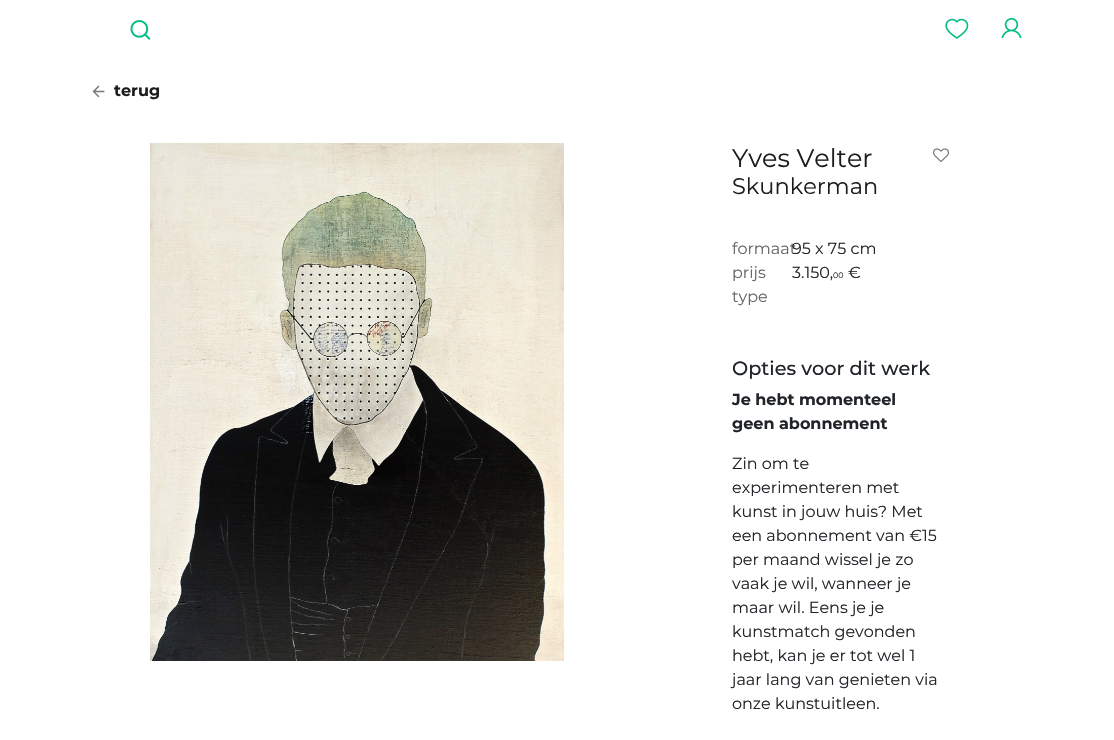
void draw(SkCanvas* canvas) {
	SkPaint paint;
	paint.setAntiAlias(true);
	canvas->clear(0xffffffff);
	canvas->drawImageRect(SkImages::DeferredFromEncodedData(SkData::MakeFromFileName("img1.png")), SkRect::MakeXYWH(130, 20, 21, 20), SkSamplingOptions());
	canvas->drawImageRect(SkImages::DeferredFromEncodedData(SkData::MakeFromFileName("img2.png")), SkRect::MakeXYWH(945, 18, 24, 21), SkSamplingOptions());
	canvas->drawImageRect(SkImages::DeferredFromEncodedData(SkData::MakeFromFileName("img3.png")), SkRect::MakeXYWH(1001, 18, 21, 20), SkSamplingOptions());
	canvas->drawImageRect(SkImages::DeferredFromEncodedData(SkData::MakeFromFileName("img4.png")), SkRect::MakeXYWH(92, 85, 13, 13), SkSamplingOptions());
	SkFont f1(fontMgr->matchFamilyStyle("Montserrat", SkFontStyle::Bold()), 16);
	f1.setSubpixel(true);
	paint.setColor(0xff1d1d1d);
	canvas->drawString("terug", 114, 96, f1, paint);
	canvas->drawImageRect(SkImages::DeferredFromEncodedData(SkData::MakeFromFileName("img5.png")), SkRect::MakeXYWH(150, 143, 414, 518), SkSamplingOptions());
	SkFont f2(fontMgr->matchFamilyStyle("Montserrat", SkFontStyle::Normal()), 25.5);
	f2.setSubpixel(true);
	canvas->drawString("Yves Velter", 732, 167, f2, paint);
	canvas->drawImageRect(SkImages::DeferredFromEncodedData(SkData::MakeFromFileName("img6.png")), SkRect::MakeXYWH(933, 148, 16, 14), SkSamplingOptions());
	SkFont f3(fontMgr->matchFamilyStyle("Montserrat", SkFontStyle::Normal()), 22.5);
	f3.setSubpixel(true);
	canvas->drawString("Skunkerman", 732, 194, f3, paint);
	SkFont f4(fontMgr->matchFamilyStyle("Montserrat", SkFontStyle::Normal()), 16);
	f4.setSubpixel(true);
	paint.setColor(0xff646669);
	canvas->drawString("formaat", 732, 254, f4, paint);
	paint.setColor(0xff212529);
	canvas->drawString("95 x 75 cm", 792, 254, f4, paint);
	paint.setColor(0xff646669);
	canvas->drawString("prijs", 732, 278, f4, paint);
	paint.setColor(0xff212529);
	canvas->drawString("3.150,", 792, 278, f4, paint);
	SkFont f5(fontMgr->matchFamilyStyle("Montserrat", SkFontStyle::Normal()), 8);
	f5.setSubpixel(true);
	canvas->drawString("00", 833, 278, f5, paint);
	canvas->drawString("€", 848, 278, f4, paint);
	paint.setColor(0xff646669);
	canvas->drawString("type", 732, 302, f4, paint);
	SkFont f6(fontMgr->matchFamilyStyle("Montserrat", SkFontStyle(500, SkFontStyle::kNormal_Width, SkFontStyle::kUpright_Slant)), 19.25);
	f6.setSubpixel(true);
	paint.setColor(0xff212529);
	canvas->drawString("Opties voor dit werk", 732, 375, f6, paint);
	canvas->drawString("Je hebt momenteel", 732, 405, f1, paint);
	canvas->drawString("geen abonnement", 732, 429, f1, paint);
	canvas->drawString("Zin om te", 732, 469, f4, paint);
	canvas->drawString("experimenteren met", 732, 493, f4, paint);
	canvas->drawString("kunst in jouw huis? Met", 732, 517, f4, paint);
	canvas->drawString("een abonnement van €15", 732, 541, f4, paint);
	canvas->drawString("per maand wissel je zo", 732, 565, f4, paint);
	canvas->drawString("vaak je wil, wanneer je", 732, 589, f4, paint);
	canvas->drawString("maar wil. Eens je je", 732, 613, f4, paint);
	canvas->drawString("kunstmatch gevonden", 732, 637, f4, paint);
	canvas->drawString("hebt, kan je er tot wel 1", 732, 661, f4, paint);
	canvas->drawString("jaar lang van genieten via", 732, 685, f4, paint);
	canvas->drawString("onze kunstuitleen.", 732, 709, f4, paint);
}
